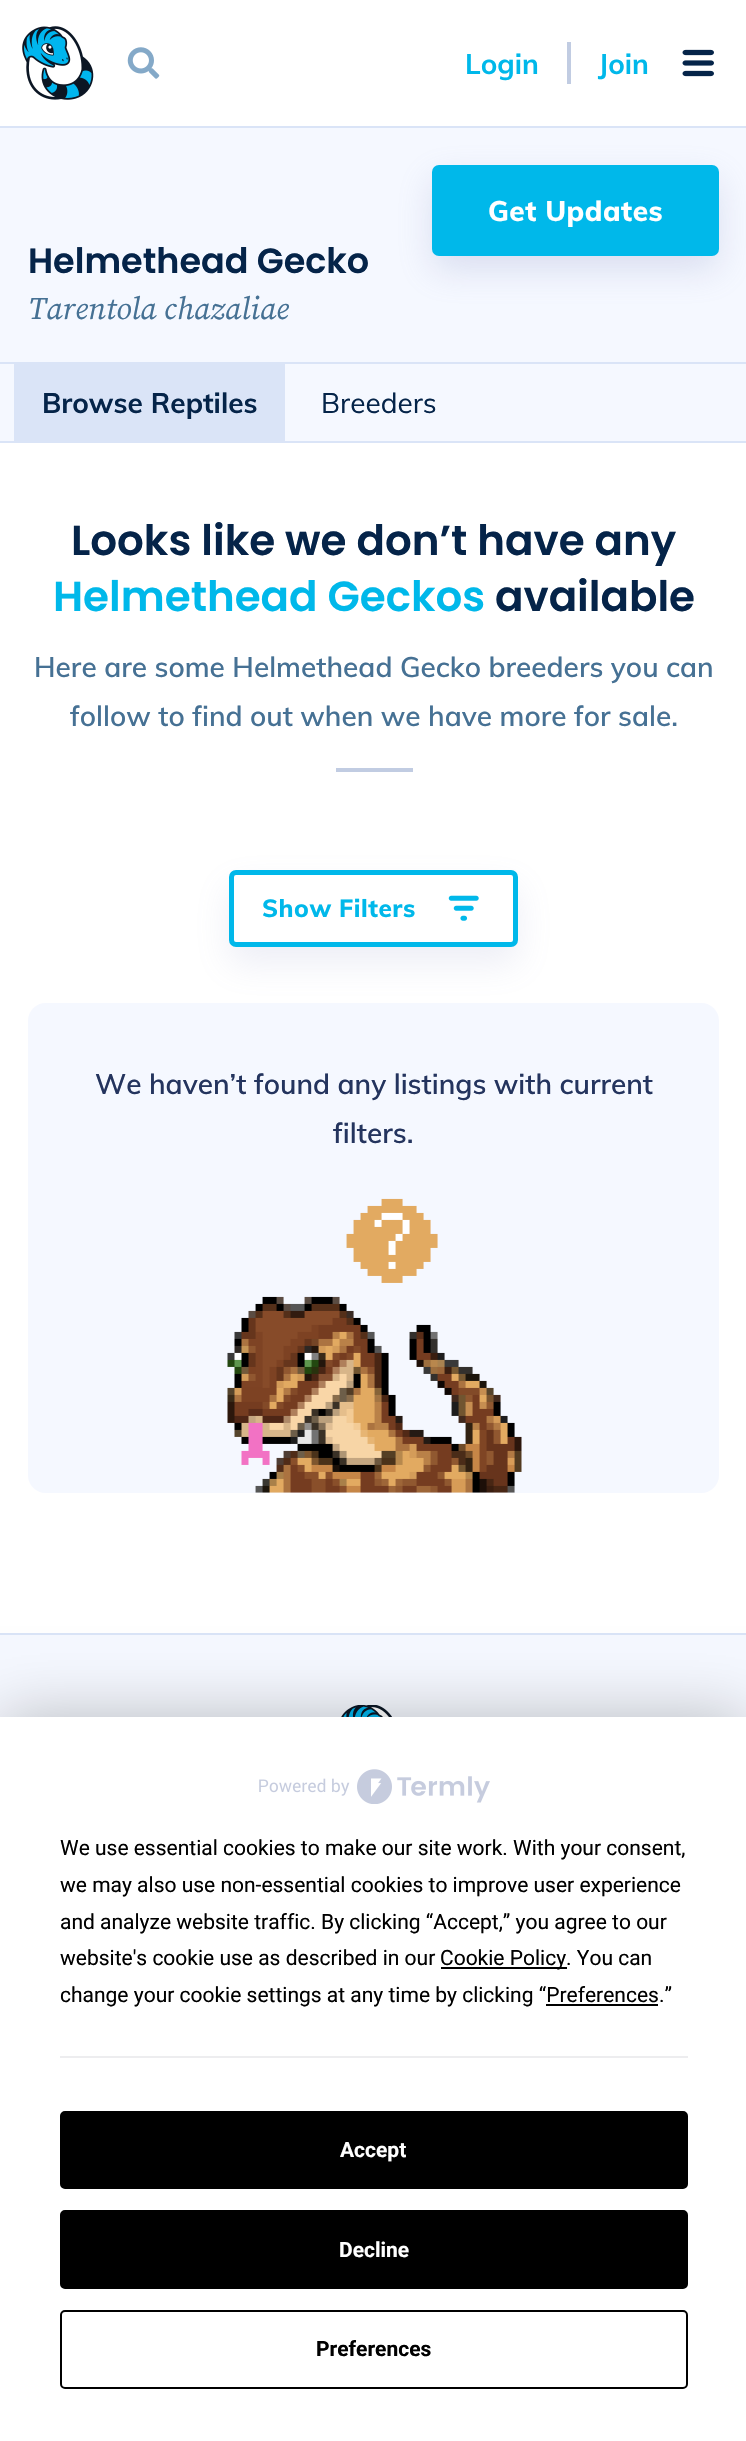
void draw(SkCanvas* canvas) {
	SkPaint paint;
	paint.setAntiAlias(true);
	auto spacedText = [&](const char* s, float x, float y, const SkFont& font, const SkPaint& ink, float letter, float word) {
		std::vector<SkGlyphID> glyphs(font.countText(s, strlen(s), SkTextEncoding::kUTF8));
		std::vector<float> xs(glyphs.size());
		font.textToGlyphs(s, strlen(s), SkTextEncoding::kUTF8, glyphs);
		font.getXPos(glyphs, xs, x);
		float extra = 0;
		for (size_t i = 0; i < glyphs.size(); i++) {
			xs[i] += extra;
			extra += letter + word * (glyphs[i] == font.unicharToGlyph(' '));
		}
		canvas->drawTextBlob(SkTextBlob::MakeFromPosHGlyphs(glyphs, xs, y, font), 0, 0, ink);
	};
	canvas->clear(0xffffffff);
	paint.setColor(0xfff5f8ff);
	canvas->drawRect(SkRect::MakeXYWH(0, 128, 746, 313), paint);
	paint.setColor(0x40868fc3);
	paint.setMaskFilter(SkMaskFilter::MakeBlur(kNormal_SkBlurStyle, 17.5));
	canvas->drawRoundRect(SkRect::MakeXYWH(432, 179, 287, 91), 7, 7, paint);
	paint.setMaskFilter(nullptr);
	paint.setColor(0xffdae4f7);
	canvas->drawRect(SkRect::MakeXYWH(0, 126, 746, 2), paint);
	canvas->drawImageRect(SkImages::DeferredFromEncodedData(SkData::MakeFromFileName("img1.png")), SkRect::MakeXYWH(22, 26, 72, 74), SkSamplingOptions());
	canvas->drawImageRect(SkImages::DeferredFromEncodedData(SkData::MakeFromFileName("img2.png")), SkRect::MakeXYWH(127, 47, 33, 32), SkSamplingOptions());
	SkFont f1(fontMgr->matchFamilyStyle("Mulish", SkFontStyle::Bold()), 28);
	f1.setSubpixel(true);
	paint.setColor(0xff00b8ea);
	canvas->drawString("Login", 465, 74, f1, paint);
	paint.setColor(0xffc1cce2);
	canvas->drawRect(SkRect::MakeXYWH(567, 42, 4, 42), paint);
	paint.setColor(0xff00b8ea);
	canvas->drawString("Join", 598, 74, f1, paint);
	canvas->drawImageRect(SkImages::DeferredFromEncodedData(SkData::MakeFromFileName("img3.png")), SkRect::MakeXYWH(682, 49, 32, 28), SkSamplingOptions());
	paint.setColor(0xffdae4f7);
	canvas->drawRect(SkRect::MakeXYWH(0, 441, 746, 2), paint);
	canvas->drawRect(SkRect::MakeXYWH(0, 362, 746, 2), paint);
	paint.setColor(0xff00b8ea);
	canvas->drawRoundRect(SkRect::MakeXYWH(432, 165, 287, 91), 7, 7, paint);
	SkFont f2(fontMgr->matchFamilyStyle("Mulish", SkFontStyle(800, SkFontStyle::kNormal_Width, SkFontStyle::kUpright_Slant)), 28);
	f2.setSubpixel(true);
	paint.setColor(0xffffffff);
	spacedText("Get Updates", 488, 221, f2, paint, 0.5, 0);
	paint.setColor(0xffdae4f7);
	canvas->drawRect(SkRect::MakeXYWH(14, 364, 271, 77), paint);
	paint.setColor(0xff052449);
	canvas->drawString("Browse Reptiles", 42, 413, f1, paint);
	SkFont f3(fontMgr->matchFamilyStyle("Mulish", SkFontStyle::Normal()), 28);
	f3.setSubpixel(true);
	canvas->drawString("Breeders", 321, 413, f3, paint);
	SkFont f4(fontMgr->matchFamilyStyle("Poppins", SkFontStyle(600, SkFontStyle::kNormal_Width, SkFontStyle::kUpright_Slant)), 35);
	f4.setSubpixel(true);
	canvas->drawString("Helmethead Gecko", 28, 273, f4, paint);
	SkFont f5(fontMgr->matchFamilyStyle("Source Serif Pro", SkFontStyle::Italic()), 31.5);
	f5.setSubpixel(true);
	paint.setColor(0xff467194);
	canvas->drawString("Tarentola chazaliae", 28, 319, f5, paint);
	SkFont f6(fontMgr->matchFamilyStyle("Poppins", SkFontStyle(600, SkFontStyle::kNormal_Width, SkFontStyle::kUpright_Slant)), 42);
	f6.setSubpixel(true);
	paint.setColor(0xff052449);
	canvas->drawString("Looks like we don’t have any", 71, 555, f6, paint);
	paint.setColor(0xff00b8ea);
	canvas->drawString("Helmethead Geckos", 53, 611, f6, paint);
	paint.setColor(0xff052449);
	canvas->drawString("available", 495, 611, f6, paint);
	SkFont f7(fontMgr->matchFamilyStyle("Mulish", SkFontStyle(600, SkFontStyle::kNormal_Width, SkFontStyle::kUpright_Slant)), 28);
	f7.setSubpixel(true);
	paint.setColor(0xff467194);
	canvas->drawString("Here are some Helmethead Gecko breeders you can", 34, 677, f7, paint);
	canvas->drawString("follow to find out when we have more for sale.", 70, 726, f7, paint);
	paint.setColor(0xffc1cce2);
	canvas->drawRect(SkRect::MakeXYWH(336, 768, 77, 4), paint);
	paint.setColor(0x26868fc3);
	paint.setMaskFilter(SkMaskFilter::MakeBlur(kNormal_SkBlurStyle, 17.5));
	canvas->drawRoundRect(SkRect::MakeXYWH(229, 887, 289, 77), 7, 7, paint);
	paint.setMaskFilter(nullptr);
	paint.setColor(0xffffffff);
	canvas->drawRoundRect(SkRect::MakeXYWH(231.5, 872.5, 284, 72), 4.5, 4.5, paint);
	paint.setStroke(true);
	paint.setStrokeWidth(5);
	paint.setColor(0xff00b8ea);
	canvas->drawRoundRect(SkRect::MakeXYWH(231.5, 872.5, 284, 72), 4.5, 4.5, paint);
	SkFont f8(fontMgr->matchFamilyStyle("Mulish", SkFontStyle(800, SkFontStyle::kNormal_Width, SkFontStyle::kUpright_Slant)), 24.5);
	f8.setSubpixel(true);
	paint.setStroke(false);
	spacedText("Show Filters", 262, 917, f8, paint, 0.5, 0);
	canvas->drawImageRect(SkImages::DeferredFromEncodedData(SkData::MakeFromFileName("img4.png")), SkRect::MakeXYWH(448, 895, 31, 26), SkSamplingOptions());
	paint.setColor(0xfff5f8ff);
	canvas->drawRoundRect(SkRect::MakeXYWH(28, 1003, 691, 490), 18, 18, paint);
	paint.setColor(0xff24345e);
	canvas->drawString("We haven’t found any listings with current", 95, 1094, f7, paint);
	canvas->drawString("filters.", 333, 1143, f7, paint);
	canvas->drawImageRect(SkImages::DeferredFromEncodedData(SkData::MakeFromFileName("img5.png")), SkRect::MakeXYWH(227, 1198, 295, 295), SkSamplingOptions());
	paint.setColor(0xfff5f8ff);
	canvas->drawRect(SkRect::MakeXYWH(0, 1635, 746, 82), paint);
	paint.setColor(0xffdae4f7);
	canvas->drawRect(SkRect::MakeXYWH(0, 1633, 746, 2), paint);
	canvas->drawImageRect(SkImages::DeferredFromEncodedData(SkData::MakeFromFileName("img6.png")), SkRect::MakeXYWH(341, 1705, 51, 12), SkSamplingOptions());
	paint.setColor(0x40000000);
	paint.setMaskFilter(SkMaskFilter::MakeBlur(kNormal_SkBlurStyle, 30.5));
	canvas->drawRect(SkRect::MakeXYWH(0, 1717, 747, 724), paint);
	paint.setMaskFilter(nullptr);
	paint.setColor(0xffffffff);
	canvas->drawRect(SkRect::MakeXYWH(0, 1717, 746, 724), paint);
	canvas->drawImageRect(SkImages::DeferredFromEncodedData(SkData::MakeFromFileName("img7.png")), SkRect::MakeXYWH(259, 1769, 231, 35), SkSamplingOptions());
	SkFont f9(fontMgr->matchFamilyStyle("Roboto", SkFontStyle::Normal()), 21);
	f9.setSubpixel(true);
	paint.setColor(0xff000000);
	canvas->drawString("We use essential cookies to make our site work. With your consent,", 60, 1855, f9, paint);
	canvas->drawString("we may also use non-essential cookies to improve user experience", 60, 1892, f9, paint);
	canvas->drawString("and analyze website traffic. By clicking “Accept,” you agree to our", 60, 1929, f9, paint);
	canvas->drawString("website's cookie use as described in our", 60, 1965, f9, paint);
	canvas->drawRect(SkRect::MakeXYWH(441, 1967, 126, 2), paint);
	canvas->drawString("Cookie Policy. You can", 440, 1965, f9, paint);
	canvas->drawString("change your cookie settings at any time by clicking “Preferences.”", 60, 2002, f9, paint);
	canvas->drawRect(SkRect::MakeXYWH(546, 2004, 112, 2), paint);
	paint.setColor(0xffededef);
	canvas->drawRect(SkRect::MakeXYWH(60, 2056, 628, 2), paint);
	paint.setColor(0xff000000);
	canvas->drawRoundRect(SkRect::MakeXYWH(61, 2112, 626, 76), 4, 4, paint);
	paint.setStroke(true);
	paint.setStrokeWidth(2);
	canvas->drawRoundRect(SkRect::MakeXYWH(61, 2112, 626, 76), 4, 4, paint);
	SkFont f10(fontMgr->matchFamilyStyle("Roboto", SkFontStyle::Bold()), 21);
	f10.setSubpixel(true);
	paint.setStroke(false);
	paint.setColor(0xffffffff);
	canvas->drawString("Accept", 340, 2157, f10, paint);
	paint.setColor(0xff000000);
	canvas->drawRoundRect(SkRect::MakeXYWH(61, 2211, 626, 77), 4, 4, paint);
	paint.setStroke(true);
	canvas->drawRoundRect(SkRect::MakeXYWH(61, 2211, 626, 77), 4, 4, paint);
	paint.setStroke(false);
	paint.setColor(0xffffffff);
	canvas->drawString("Decline", 339, 2257, f10, paint);
	paint.setStroke(true);
	paint.setColor(0xff000000);
	canvas->drawRoundRect(SkRect::MakeXYWH(61, 2311, 626, 77), 4, 4, paint);
	paint.setStroke(false);
	canvas->drawString("Preferences", 316, 2356, f10, paint);
}
